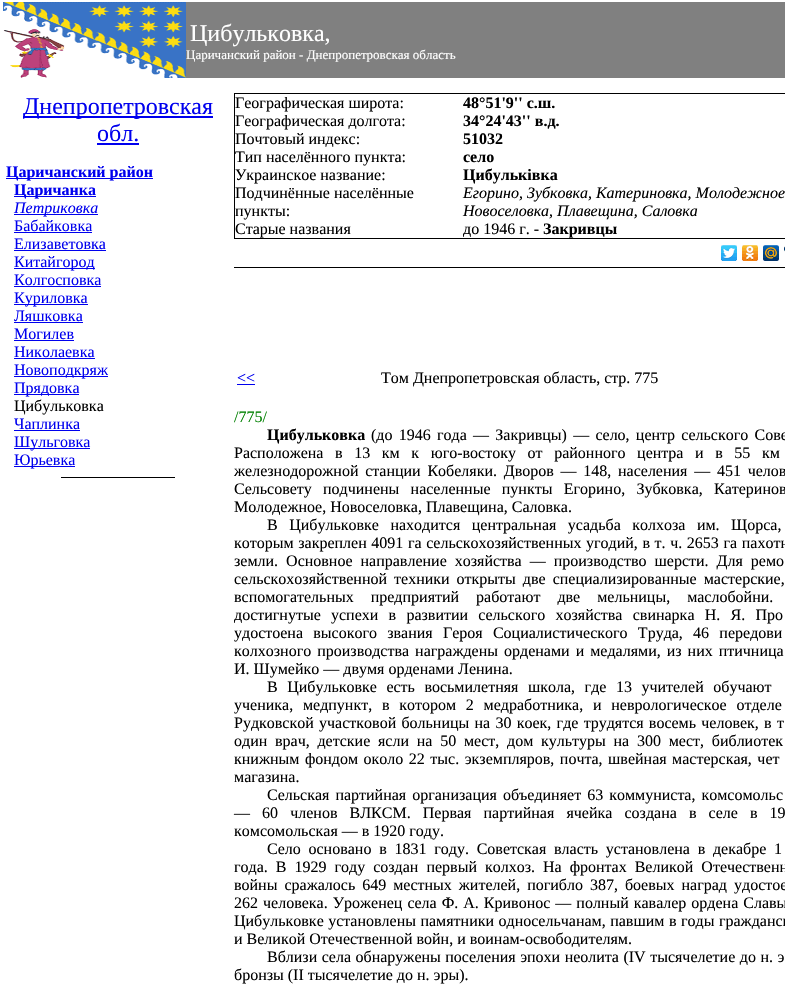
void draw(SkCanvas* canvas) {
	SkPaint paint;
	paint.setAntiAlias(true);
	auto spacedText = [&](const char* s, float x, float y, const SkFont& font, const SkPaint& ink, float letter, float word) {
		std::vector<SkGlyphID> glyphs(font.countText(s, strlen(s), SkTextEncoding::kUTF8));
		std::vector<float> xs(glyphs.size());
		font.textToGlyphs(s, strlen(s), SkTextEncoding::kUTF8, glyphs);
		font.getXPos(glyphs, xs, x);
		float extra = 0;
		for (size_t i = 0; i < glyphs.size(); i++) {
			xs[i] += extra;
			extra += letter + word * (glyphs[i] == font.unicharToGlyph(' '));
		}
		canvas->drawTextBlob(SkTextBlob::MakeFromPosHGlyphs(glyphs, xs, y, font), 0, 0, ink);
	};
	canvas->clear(0xffffffff);
	canvas->drawImageRect(SkImages::DeferredFromEncodedData(SkData::MakeFromFileName("img1.png")), SkRect::MakeXYWH(3, 2, 183, 76), SkSamplingOptions());
	paint.setColor(0xff808080);
	canvas->drawRect(SkRect::MakeXYWH(186, 2, 599, 76), paint);
	SkFont f1(fontMgr->matchFamilyStyle("Liberation Serif", SkFontStyle::Normal()), 24);
	f1.setSubpixel(true);
	paint.setColor(0xffffffff);
	canvas->drawString("Цибульковка,", 190, 41, f1, paint);
	SkFont f2(fontMgr->matchFamilyStyle("Liberation Serif", SkFontStyle::Normal()), 13);
	f2.setSubpixel(true);
	canvas->drawString("Царичанский район - Днепропетровская область", 186, 59, f2, paint);
	paint.setColor(0xff0000ee);
	canvas->drawRect(SkRect::MakeXYWH(23, 116, 190, 2), paint);
	canvas->drawString("Днепропетровская", 23, 114, f1, paint);
	canvas->drawString("обл.", 97, 141, f1, paint);
	canvas->drawRect(SkRect::MakeXYWH(97, 143, 42, 2), paint);
	canvas->drawRect(SkRect::MakeXYWH(6, 178, 147, 1), paint);
	SkFont f3(fontMgr->matchFamilyStyle("Liberation Serif", SkFontStyle::Bold()), 16);
	f3.setSubpixel(true);
	canvas->drawString("Царичанский район", 6, 177, f3, paint);
	canvas->drawRect(SkRect::MakeXYWH(14, 196, 82, 1), paint);
	canvas->drawString("Царичанка", 14, 195, f3, paint);
	canvas->drawRect(SkRect::MakeXYWH(14, 214, 84, 1), paint);
	SkFont f4(fontMgr->matchFamilyStyle("Liberation Serif", SkFontStyle::Italic()), 16);
	f4.setSubpixel(true);
	canvas->drawString("Петриковка", 14, 213, f4, paint);
	SkFont f5(fontMgr->matchFamilyStyle("Liberation Serif", SkFontStyle::Normal()), 16);
	f5.setSubpixel(true);
	canvas->drawString("Бабайковка", 14, 231, f5, paint);
	canvas->drawRect(SkRect::MakeXYWH(14, 232, 78, 1), paint);
	canvas->drawString("Елизаветовка", 14, 249, f5, paint);
	canvas->drawRect(SkRect::MakeXYWH(14, 250, 92, 1), paint);
	canvas->drawRect(SkRect::MakeXYWH(14, 268, 81, 1), paint);
	canvas->drawString("Китайгород", 14, 267, f5, paint);
	canvas->drawString("Колгосповка", 14, 285, f5, paint);
	canvas->drawRect(SkRect::MakeXYWH(14, 286, 87, 1), paint);
	canvas->drawRect(SkRect::MakeXYWH(14, 304, 74, 1), paint);
	canvas->drawString("Куриловка", 14, 303, f5, paint);
	canvas->drawString("Ляшковка", 14, 321, f5, paint);
	canvas->drawRect(SkRect::MakeXYWH(14, 322, 69, 1), paint);
	canvas->drawString("Могилев", 14, 339, f5, paint);
	canvas->drawRect(SkRect::MakeXYWH(14, 340, 60, 1), paint);
	canvas->drawString("Николаевка", 14, 357, f5, paint);
	canvas->drawRect(SkRect::MakeXYWH(14, 358, 81, 1), paint);
	canvas->drawRect(SkRect::MakeXYWH(14, 376, 94, 1), paint);
	canvas->drawString("Новоподкряж", 14, 375, f5, paint);
	canvas->drawRect(SkRect::MakeXYWH(14, 394, 65, 1), paint);
	canvas->drawString("Прядовка", 14, 393, f5, paint);
	paint.setColor(0xff000000);
	canvas->drawString("Цибульковка", 14, 411, f5, paint);
	paint.setColor(0xff0000ee);
	canvas->drawString("Чаплинка", 14, 429, f5, paint);
	canvas->drawRect(SkRect::MakeXYWH(14, 430, 66, 1), paint);
	canvas->drawRect(SkRect::MakeXYWH(14, 448, 76, 1), paint);
	canvas->drawString("Шульговка", 14, 447, f5, paint);
	canvas->drawRect(SkRect::MakeXYWH(14, 466, 61, 1), paint);
	canvas->drawString("Юрьевка", 14, 465, f5, paint);
	paint.setColor(0xff000000);
	canvas->drawRect(SkRect::MakeXYWH(61, 477, 114, 1), paint);
	paint.setStroke(true);
	paint.setStrokeWidth(1);
	canvas->drawRect(SkRect::MakeXYWH(234.5, 93.5, 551, 145), paint);
	paint.setStroke(false);
	canvas->drawString("Географическая широта:", 235, 108, f5, paint);
	canvas->drawString("48°51'9'' с.ш.", 463, 108, f3, paint);
	canvas->drawString("Географическая долгота:", 235, 126, f5, paint);
	canvas->drawString("34°24'43'' в.д.", 463, 126, f3, paint);
	canvas->drawString("Почтовый индекс:", 235, 144, f5, paint);
	canvas->drawString("51032", 463, 144, f3, paint);
	canvas->drawString("Тип населённого пункта:", 235, 162, f5, paint);
	canvas->drawString("село", 463, 162, f3, paint);
	canvas->drawString("Украинское название:", 235, 180, f5, paint);
	canvas->drawString("Цибульківка", 463, 180, f3, paint);
	canvas->drawString("Подчинённые населённые", 235, 198, f5, paint);
	canvas->drawString("пункты:", 235, 216, f5, paint);
	canvas->drawString("Егорино, Зубковка, Катериновка, Молодежное", 463, 198, f4, paint);
	canvas->drawString("Новоселовка, Плавещина, Саловка", 463, 216, f4, paint);
	canvas->drawString("Старые названия", 235, 234, f5, paint);
	canvas->drawString("до 1946 г. -", 463, 234, f5, paint);
	canvas->drawString("Закривцы", 543, 234, f3, paint);
	canvas->drawImageRect(SkImages::DeferredFromEncodedData(SkData::MakeFromFileName("img2.png")), SkRect::MakeXYWH(721, 245, 16, 16), SkSamplingOptions());
	canvas->drawImageRect(SkImages::DeferredFromEncodedData(SkData::MakeFromFileName("img3.png")), SkRect::MakeXYWH(742, 245, 16, 16), SkSamplingOptions());
	canvas->drawImageRect(SkImages::DeferredFromEncodedData(SkData::MakeFromFileName("img4.png")), SkRect::MakeXYWH(763, 245, 16, 16), SkSamplingOptions());
	canvas->drawImageRect(SkImages::DeferredFromEncodedData(SkData::MakeFromFileName("img5.png")), SkRect::MakeXYWH(784, 246, 1, 6), SkSamplingOptions());
	canvas->drawRect(SkRect::MakeXYWH(234, 267, 551, 1), paint);
	paint.setColor(0xff0000ee);
	canvas->drawString("<<", 237, 383, f5, paint);
	canvas->drawRect(SkRect::MakeXYWH(237, 384, 18, 1), paint);
	paint.setColor(0xff000000);
	canvas->drawString("Том Днепропетровская область, стр. 775", 381, 383, f5, paint);
	paint.setColor(0xff008000);
	canvas->drawString("/775/", 234, 422, f5, paint);
	paint.setColor(0xff000000);
	canvas->drawString("Цибульковка", 267, 440, f3, paint);
	spacedText("(до 1946 года — Закривцы) — село, центр сельского Сове", 371, 440, f5, paint, 0, 2.25);
	spacedText("Расположена в 13 км к юго-востоку от районного центра и в 55 км", 234, 458, f5, paint, 0, 7.6);
	spacedText("железнодорожной станции Кобеляки. Дворов — 148, населения — 451 челов", 234, 476, f5, paint, 0, 2.75);
	spacedText("Сельсовету подчинены населенные пункты Егорино, Зубковка, Катеринов", 234, 494, f5, paint, 0, 7.25);
	canvas->drawString("Молодежное, Новоселовка, Плавещина, Саловка.", 234, 512, f5, paint);
	spacedText("В Цибульковке находится центральная усадьба колхоза им. Щорса,", 267, 530, f5, paint, 0, 7.5);
	spacedText("которым закреплен 4091 га сельскохозяйственных угодий, в т. ч. 2653 га пахотн", 234, 548, f5, paint, 0, 0.6);
	spacedText("земли. Основное направление хозяйства — производство шерсти. Для ремо", 234, 566, f5, paint, 0, 4);
	spacedText("сельскохозяйственной техники открыты две специализированные мастерские,", 234, 584, f5, paint, 0, 3);
	spacedText("вспомогательных предприятий работают две мельницы, маслобойни.", 234, 602, f5, paint, 0, 13);
	spacedText("достигнутые успехи в развитии сельского хозяйства свинарка Н. Я. Про", 234, 620, f5, paint, 0, 6.25);
	spacedText("удостоена высокого звания Героя Социалистического Труда, 46 передови", 234, 638, f5, paint, 0, 6.25);
	spacedText("колхозного производства награждены орденами и медалями, из них птичница", 234, 656, f5, paint, 0, 2);
	canvas->drawString("И. Шумейко — двумя орденами Ленина.", 234, 674, f5, paint);
	spacedText("В Цибульковке есть восьмилетняя школа, где 13 учителей обучают", 267, 692, f5, paint, 0, 5.5);
	spacedText("ученика, медпункт, в котором 2 медработника, и неврологическое отделе", 234, 710, f5, paint, 0, 5.75);
	spacedText("Рудковской участковой больницы на 30 коек, где трудятся восемь человек, в т", 234, 728, f5, paint, 0, 1.25);
	spacedText("один врач, детские ясли на 50 мест, дом культуры на 300 мест, библиотек", 234, 746, f5, paint, 0, 3.75);
	spacedText("книжным фондом около 22 тыс. экземпляров, почта, швейная мастерская, чет", 234, 764, f5, paint, 0, 1.5);
	canvas->drawString("магазина.", 234, 782, f5, paint);
	spacedText("Сельская партийная организация объединяет 63 коммуниста, комсомольс", 267, 800, f5, paint, 0, 2);
	spacedText("— 60 членов ВЛКСМ. Первая партийная ячейка создана в селе в 19", 234, 818, f5, paint, 0, 8.1);
	canvas->drawString("комсомольская — в 1920 году.", 234, 836, f5, paint);
	spacedText("Село основано в 1831 году. Советская власть установлена в декабре 1", 267, 854, f5, paint, 0, 3.75);
	spacedText("года. В 1929 году создан первый колхоз. На фронтах Великой Отечественн", 234, 872, f5, paint, 0, 4);
	spacedText("войны сражалось 649 местных жителей, погибло 387, боевых наград удостое", 234, 890, f5, paint, 0, 3);
	spacedText("262 человека. Уроженец села Ф. А. Кривонос — полный кавалер ордена Славы", 234, 908, f5, paint, 0, 1);
	spacedText("Цибульковке установлены памятники односельчанам, павшим в годы гражданск", 234, 926, f5, paint, 0, 0.5);
	canvas->drawString("и Великой Отечественной войн, и воинам-освободителям.", 234, 944, f5, paint);
	spacedText("Вблизи села обнаружены поселения эпохи неолита (IV тысячелетие до н. э", 267, 962, f5, paint, 0, 0.5);
	canvas->drawString("бронзы (II тысячелетие до н. эры).", 234, 980, f5, paint);
}
